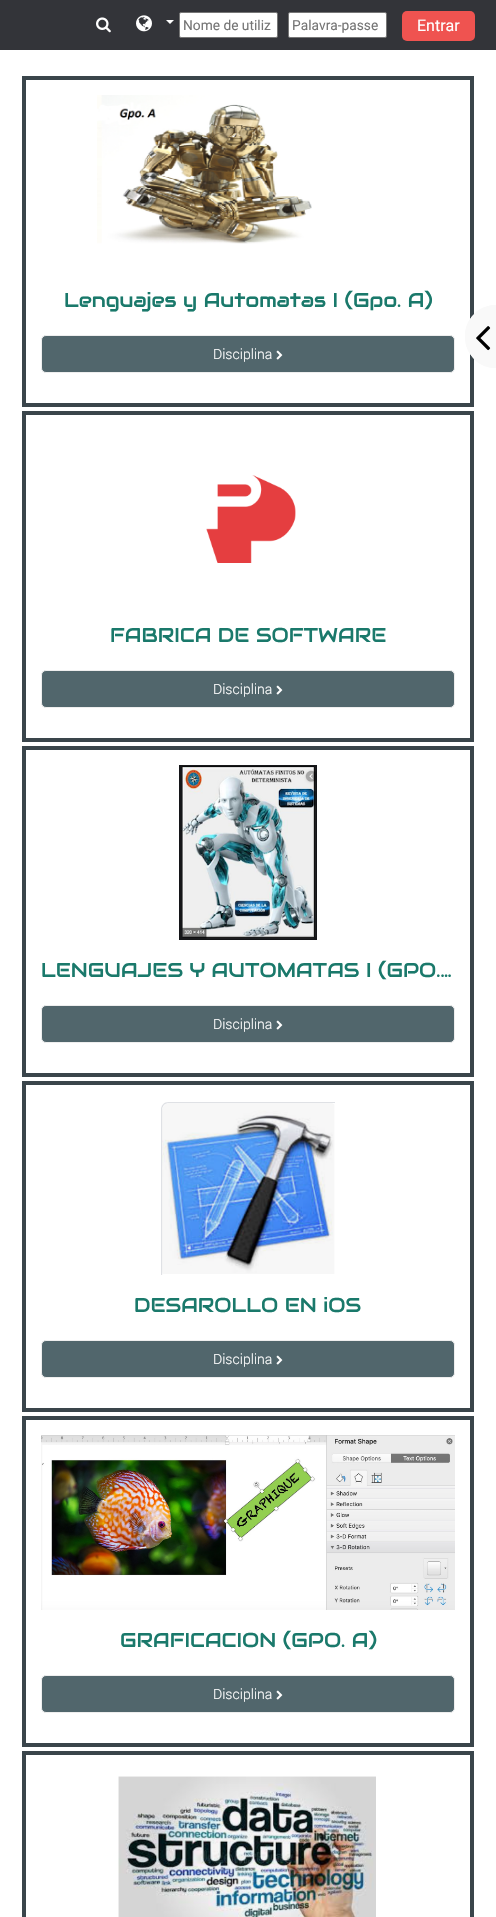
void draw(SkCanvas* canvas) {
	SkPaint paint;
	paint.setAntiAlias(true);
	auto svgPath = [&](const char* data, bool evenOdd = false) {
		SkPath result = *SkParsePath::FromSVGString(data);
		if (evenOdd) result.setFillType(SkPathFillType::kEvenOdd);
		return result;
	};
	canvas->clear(0xffffffff);
	paint.setColor(0xff333439);
	canvas->drawRect(SkRect::MakeXYWH(0, 0, 496, 50), paint);
	canvas->drawImageRect(SkImages::DeferredFromEncodedData(SkData::MakeFromFileName("img1.png")), SkRect::MakeXYWH(96, 17, 15, 16), SkSamplingOptions());
	canvas->drawImageRect(SkImages::DeferredFromEncodedData(SkData::MakeFromFileName("img2.png")), SkRect::MakeXYWH(136, 15, 16, 17), SkSamplingOptions());
	paint.setColor(0xffffffff);
	canvas->drawPath(svgPath("M166 20H174L170 24Z"), paint);
	canvas->drawRoundRect(SkRect::MakeXYWH(179.5, 12.5, 98, 25), 1.5, 1.5, paint);
	paint.setStroke(true);
	paint.setStrokeWidth(1);
	paint.setColor(0xff767676);
	canvas->drawRoundRect(SkRect::MakeXYWH(179.5, 12.5, 98, 25), 1.5, 1.5, paint);
	SkFont f1(fontMgr->matchFamilyStyle("Roboto", SkFontStyle::Normal()), 13.75);
	f1.setSubpixel(true);
	paint.setStroke(false);
	paint.setColor(0xff757575);
	canvas->drawString("Nome de utiliz", 183, 30, f1, paint);
	paint.setColor(0xffffffff);
	canvas->drawRoundRect(SkRect::MakeXYWH(288.5, 12.5, 98, 25), 1.5, 1.5, paint);
	paint.setStroke(true);
	paint.setColor(0xff767676);
	canvas->drawRoundRect(SkRect::MakeXYWH(288.5, 12.5, 98, 25), 1.5, 1.5, paint);
	paint.setStroke(false);
	paint.setColor(0xff757575);
	canvas->drawString("Palavra-passe", 292, 30, f1, paint);
	paint.setColor(0xffef5350);
	canvas->drawRoundRect(SkRect::MakeXYWH(402, 11, 73, 30), 5, 5, paint);
	SkFont f2(fontMgr->matchFamilyStyle("Roboto", SkFontStyle::Normal()), 16);
	f2.setSubpixel(true);
	paint.setColor(0xffffffff);
	canvas->drawString("Entrar", 417, 31, f2, paint);
	paint.setStroke(true);
	paint.setStrokeWidth(4);
	paint.setColor(0xff3a454b);
	canvas->drawRect(SkRect::MakeXYWH(24, 78, 448, 327), paint);
	canvas->drawImageRect(SkImages::DeferredFromEncodedData(SkData::MakeFromFileName("img3.png")), SkRect::MakeXYWH(97, 95, 215, 149), SkSamplingOptions());
	SkFont f3(fontMgr->matchFamilyStyle("Audiowide", SkFontStyle::Normal()), 20);
	f3.setSubpixel(true);
	paint.setStroke(false);
	paint.setColor(0xff1a796b);
	canvas->drawString("Lenguajes y Automatas I (Gpo. A)", 64, 307, f3, paint);
	paint.setColor(0xff51666c);
	canvas->drawRoundRect(SkRect::MakeXYWH(41.5, 335.5, 413, 37), 4.5, 4.5, paint);
	paint.setStroke(true);
	paint.setStrokeWidth(1);
	paint.setColor(0xffeeeeee);
	canvas->drawRoundRect(SkRect::MakeXYWH(41.5, 335.5, 413, 37), 4.5, 4.5, paint);
	SkFont f4(fontMgr->matchFamilyStyle("Roboto", SkFontStyle(300, SkFontStyle::kNormal_Width, SkFontStyle::kUpright_Slant)), 14);
	f4.setSubpixel(true);
	paint.setStroke(false);
	paint.setColor(0xffffffff);
	canvas->drawString("Disciplina", 213, 359, f4, paint);
	canvas->drawImageRect(SkImages::DeferredFromEncodedData(SkData::MakeFromFileName("img4.png")), SkRect::MakeXYWH(276, 350, 7, 10), SkSamplingOptions());
	paint.setStroke(true);
	paint.setStrokeWidth(4);
	paint.setColor(0xff3a454b);
	canvas->drawRect(SkRect::MakeXYWH(24, 413, 448, 327), paint);
	canvas->drawImageRect(SkImages::DeferredFromEncodedData(SkData::MakeFromFileName("img5.png")), SkRect::MakeXYWH(206, 475, 90, 88), SkSamplingOptions());
	paint.setStroke(false);
	paint.setColor(0xff1a796b);
	canvas->drawString("FABRICA DE SOFTWARE", 110, 642, f3, paint);
	paint.setColor(0xff51666c);
	canvas->drawRoundRect(SkRect::MakeXYWH(41.5, 670.5, 413, 37), 4.5, 4.5, paint);
	paint.setStroke(true);
	paint.setStrokeWidth(1);
	paint.setColor(0xffeeeeee);
	canvas->drawRoundRect(SkRect::MakeXYWH(41.5, 670.5, 413, 37), 4.5, 4.5, paint);
	paint.setStroke(false);
	paint.setColor(0xffffffff);
	canvas->drawString("Disciplina", 213, 694, f4, paint);
	canvas->drawImageRect(SkImages::DeferredFromEncodedData(SkData::MakeFromFileName("img4.png")), SkRect::MakeXYWH(276, 685, 7, 10), SkSamplingOptions());
	paint.setStroke(true);
	paint.setStrokeWidth(4);
	paint.setColor(0xff3a454b);
	canvas->drawRect(SkRect::MakeXYWH(24, 748, 448, 327), paint);
	canvas->drawImageRect(SkImages::DeferredFromEncodedData(SkData::MakeFromFileName("img6.png")), SkRect::MakeXYWH(179, 765, 138, 175), SkSamplingOptions());
	paint.setStroke(false);
	paint.setColor(0xff1a796b);
	canvas->drawString("LENGUAJES Y AUTOMATAS I (GPO.…", 41, 977, f3, paint);
	paint.setColor(0xff51666c);
	canvas->drawRoundRect(SkRect::MakeXYWH(41.5, 1005.5, 413, 37), 4.5, 4.5, paint);
	paint.setStroke(true);
	paint.setStrokeWidth(1);
	paint.setColor(0xffeeeeee);
	canvas->drawRoundRect(SkRect::MakeXYWH(41.5, 1005.5, 413, 37), 4.5, 4.5, paint);
	paint.setStroke(false);
	paint.setColor(0xffffffff);
	canvas->drawString("Disciplina", 213, 1029, f4, paint);
	canvas->drawImageRect(SkImages::DeferredFromEncodedData(SkData::MakeFromFileName("img4.png")), SkRect::MakeXYWH(276, 1020, 7, 10), SkSamplingOptions());
	paint.setStroke(true);
	paint.setStrokeWidth(4);
	paint.setColor(0xff3a454b);
	canvas->drawRect(SkRect::MakeXYWH(24, 1083, 448, 327), paint);
	canvas->drawImageRect(SkImages::DeferredFromEncodedData(SkData::MakeFromFileName("img7.png")), SkRect::MakeXYWH(161, 1102, 174, 173), SkSamplingOptions());
	paint.setStroke(false);
	paint.setColor(0xff1a796b);
	canvas->drawString("DESAROLLO EN iOS", 134, 1312, f3, paint);
	paint.setColor(0xff51666c);
	canvas->drawRoundRect(SkRect::MakeXYWH(41.5, 1340.5, 413, 37), 4.5, 4.5, paint);
	paint.setStroke(true);
	paint.setStrokeWidth(1);
	paint.setColor(0xffeeeeee);
	canvas->drawRoundRect(SkRect::MakeXYWH(41.5, 1340.5, 413, 37), 4.5, 4.5, paint);
	paint.setStroke(false);
	paint.setColor(0xffffffff);
	canvas->drawString("Disciplina", 213, 1364, f4, paint);
	canvas->drawImageRect(SkImages::DeferredFromEncodedData(SkData::MakeFromFileName("img4.png")), SkRect::MakeXYWH(276, 1355, 7, 10), SkSamplingOptions());
	paint.setStroke(true);
	paint.setStrokeWidth(4);
	paint.setColor(0xff3a454b);
	canvas->drawRect(SkRect::MakeXYWH(24, 1418, 448, 327), paint);
	canvas->drawImageRect(SkImages::DeferredFromEncodedData(SkData::MakeFromFileName("img8.png")), SkRect::MakeXYWH(41, 1435, 414, 175), SkSamplingOptions());
	paint.setStroke(false);
	paint.setColor(0xff1a796b);
	canvas->drawString("GRAFICACION (GPO. A)", 120, 1647, f3, paint);
	paint.setColor(0xff51666c);
	canvas->drawRoundRect(SkRect::MakeXYWH(41.5, 1675.5, 413, 37), 4.5, 4.5, paint);
	paint.setStroke(true);
	paint.setStrokeWidth(1);
	paint.setColor(0xffeeeeee);
	canvas->drawRoundRect(SkRect::MakeXYWH(41.5, 1675.5, 413, 37), 4.5, 4.5, paint);
	paint.setStroke(false);
	paint.setColor(0xffffffff);
	canvas->drawString("Disciplina", 213, 1699, f4, paint);
	canvas->drawImageRect(SkImages::DeferredFromEncodedData(SkData::MakeFromFileName("img4.png")), SkRect::MakeXYWH(276, 1690, 7, 10), SkSamplingOptions());
	paint.setStroke(true);
	paint.setStrokeWidth(4);
	paint.setColor(0xff3a454b);
	canvas->drawRect(SkRect::MakeXYWH(24, 1753, 448, 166), paint);
	canvas->drawImageRect(SkImages::DeferredFromEncodedData(SkData::MakeFromFileName("img9.png")), SkRect::MakeXYWH(118, 1776, 258, 141), SkSamplingOptions());
	paint.setStroke(false);
	paint.setColor(0xfff9f9f9);
	canvas->drawPath(svgPath("M496 305V368C479 368 465 354 465 337V336C465 319 479 305 496 305Z"), paint);
	canvas->drawPath(svgPath("M496 305V368C465 368 454 327 479 310C484 307 490 305 496 305ZM496 309V364C460 364 460 309 496 309Z", true), paint);
	canvas->drawImageRect(SkImages::DeferredFromEncodedData(SkData::MakeFromFileName("img10.png")), SkRect::MakeXYWH(476, 326, 15, 25), SkSamplingOptions());
}
